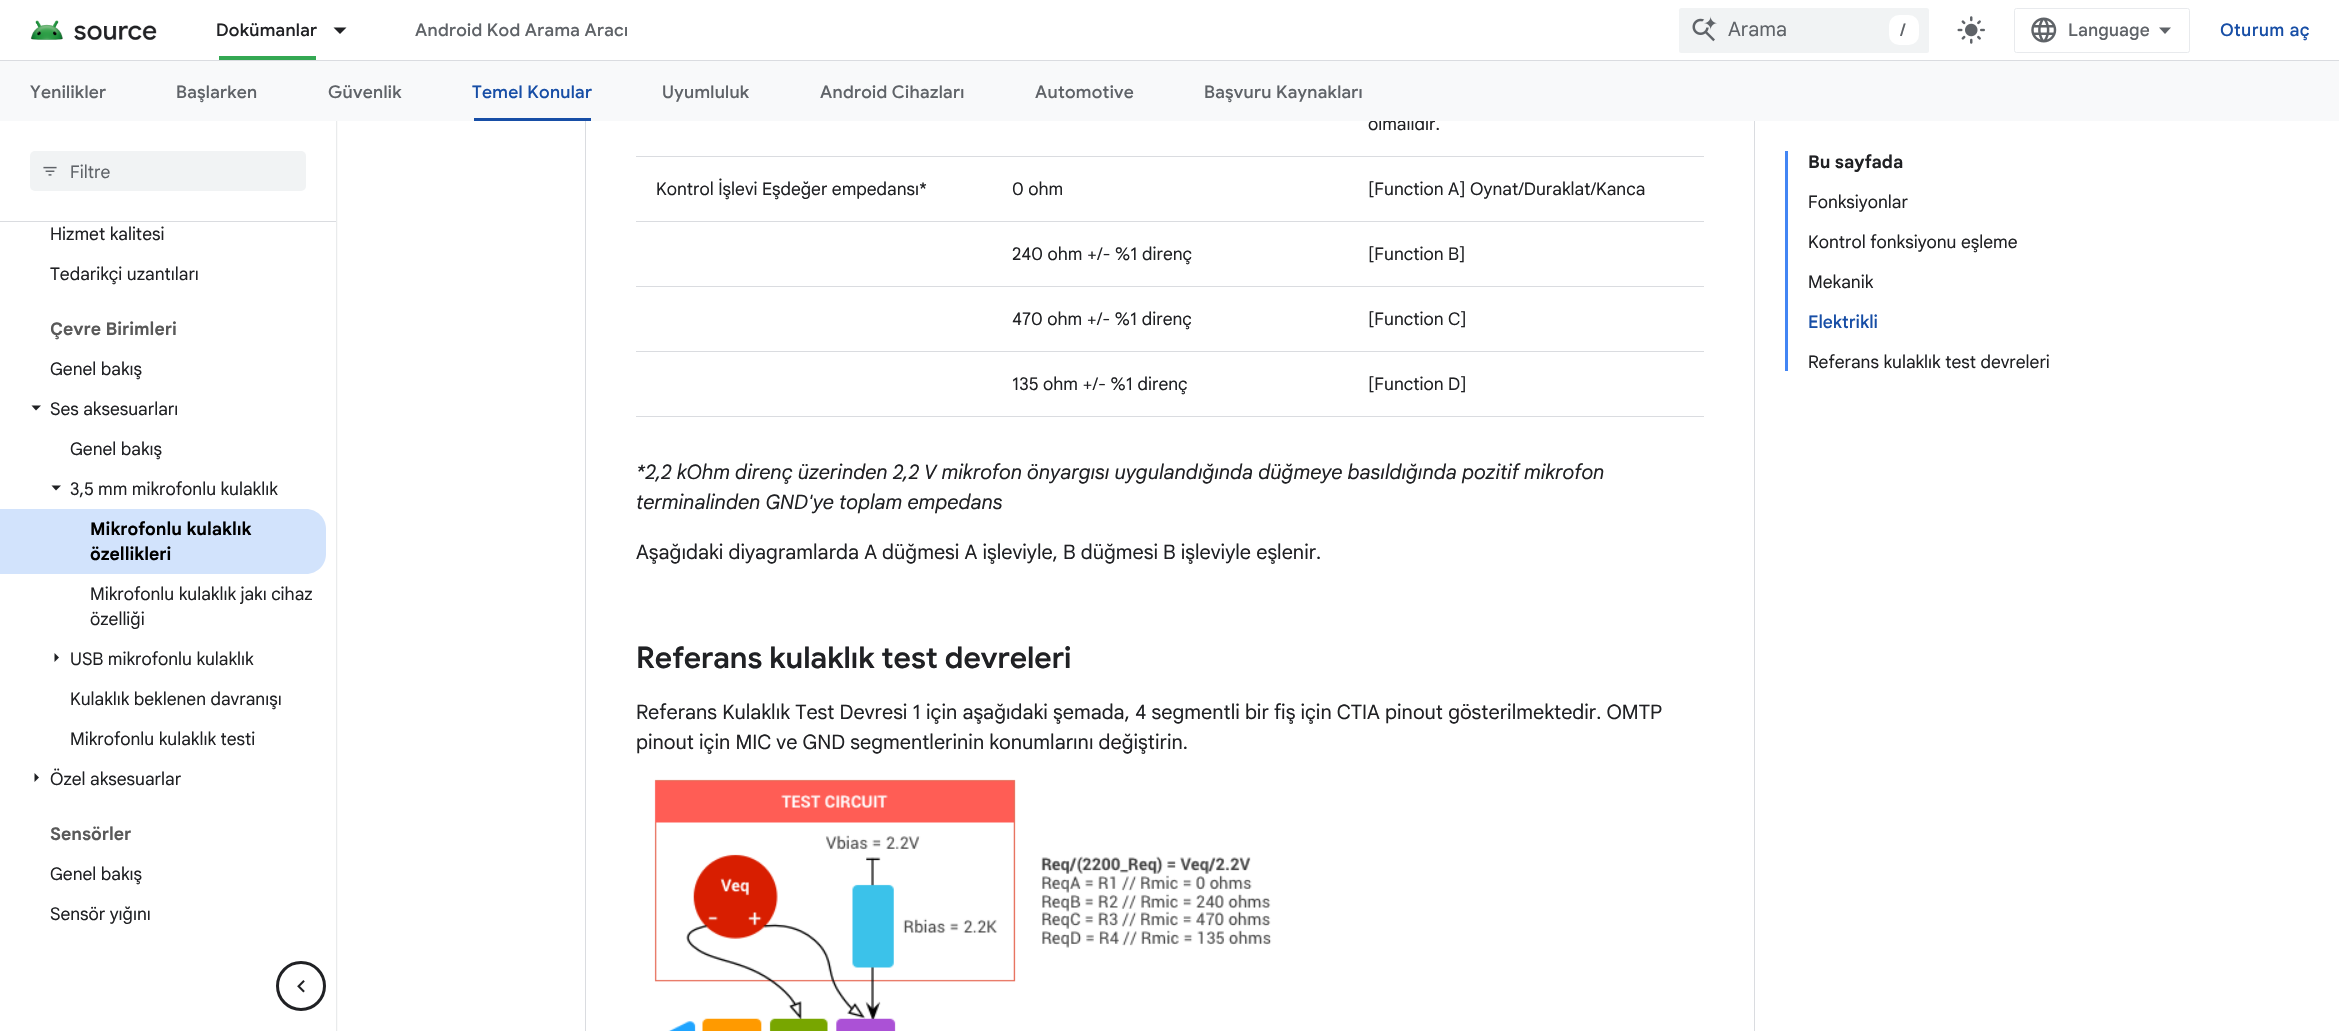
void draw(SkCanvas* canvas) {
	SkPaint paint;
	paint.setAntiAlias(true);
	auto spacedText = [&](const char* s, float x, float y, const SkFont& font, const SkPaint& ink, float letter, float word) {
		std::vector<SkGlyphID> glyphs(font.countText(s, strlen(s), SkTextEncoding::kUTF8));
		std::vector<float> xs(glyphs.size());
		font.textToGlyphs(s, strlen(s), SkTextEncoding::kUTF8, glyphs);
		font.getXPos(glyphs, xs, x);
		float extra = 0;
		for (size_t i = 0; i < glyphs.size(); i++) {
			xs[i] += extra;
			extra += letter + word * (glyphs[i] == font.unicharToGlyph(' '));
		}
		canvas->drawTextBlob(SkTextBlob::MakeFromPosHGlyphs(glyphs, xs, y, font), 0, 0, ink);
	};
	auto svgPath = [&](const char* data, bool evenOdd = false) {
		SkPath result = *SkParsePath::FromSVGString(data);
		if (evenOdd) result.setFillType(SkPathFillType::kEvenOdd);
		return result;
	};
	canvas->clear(0xffffffff);
	canvas->save();
	canvas->clipRect(SkRect::MakeXYWH(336, 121, 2, 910));
	paint.setColor(0xffbdc1c6);
	paint.setMaskFilter(SkMaskFilter::MakeBlur(kNormal_SkBlurStyle, 1));
	canvas->drawRect(SkRect::MakeXYWH(0, 1, 336, 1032), paint);
	paint.setMaskFilter(nullptr);
	canvas->restore();
	paint.setStroke(true);
	paint.setStrokeWidth(1);
	paint.setColor(0xffdadce0);
	canvas->drawRect(SkRect::MakeXYWH(585.5, -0.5, 1169, 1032), paint);
	paint.setStroke(false);
	paint.setColor(0xffffffff);
	canvas->drawRect(SkRect::MakeXYWH(336, 0, 1419, 60), paint);
	paint.setColor(0xffdadce0);
	canvas->drawRect(SkRect::MakeXYWH(0, 60, 2339, 1), paint);
	canvas->drawImageRect(SkImages::DeferredFromEncodedData(SkData::MakeFromFileName("img1.png")), SkRect::MakeXYWH(30, 20, 127, 20), SkSamplingOptions());
	SkFont f1(fontMgr->matchFamilyStyle("Google Sans", SkFontStyle(500, SkFontStyle::kNormal_Width, SkFontStyle::kUpright_Slant)), 17.5);
	f1.setSubpixel(true);
	paint.setColor(0xff202124);
	spacedText("Dokümanlar", 216, 36, f1, paint, 0.3, 0);
	paint.setColor(0xff34a853);
	canvas->drawRect(SkRect::MakeXYWH(219, 56, 97, 4), paint);
	paint.setColor(0xff202124);
	canvas->drawPath(svgPath("M333.5 27.5H346.5L340 34Z"), paint);
	paint.setColor(0xff5f6368);
	spacedText("Android Kod Arama Aracı", 415, 36, f1, paint, 0.3, 0);
	paint.setColor(0xfff1f3f4);
	canvas->drawRoundRect(SkRect::MakeXYWH(1679, 8, 250, 45), 2.5, 2.5, paint);
	canvas->drawImageRect(SkImages::DeferredFromEncodedData(SkData::MakeFromFileName("img2.png")), SkRect::MakeXYWH(1692, 16, 25, 26), SkSamplingOptions());
	SkFont f2(fontMgr->matchFamilyStyle("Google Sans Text", SkFontStyle::Normal()), 20);
	f2.setSubpixel(true);
	paint.setColor(0xff5f6368);
	canvas->drawString("Arama", 1728, 36, f2, paint);
	paint.setColor(0xffffffff);
	canvas->drawRoundRect(SkRect::MakeXYWH(1889, 15, 30, 30), 10, 10, paint);
	paint.setColor(0xff5f6368);
	canvas->drawString("/", 1900, 36, f1, paint);
	canvas->drawImageRect(SkImages::DeferredFromEncodedData(SkData::MakeFromFileName("img3.png")), SkRect::MakeXYWH(1957, 16, 28, 28), SkSamplingOptions());
	paint.setStroke(true);
	paint.setColor(0xffe8eaed);
	canvas->drawRoundRect(SkRect::MakeXYWH(2014.5, 8.5, 175, 44), 2, 2, paint);
	canvas->drawImageRect(SkImages::DeferredFromEncodedData(SkData::MakeFromFileName("img4.png")), SkRect::MakeXYWH(2031, 17, 26, 26), SkSamplingOptions());
	SkFont f3(fontMgr->matchFamilyStyle("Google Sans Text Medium", SkFontStyle(500, SkFontStyle::kNormal_Width, SkFontStyle::kUpright_Slant)), 17.5);
	f3.setSubpixel(true);
	paint.setStroke(false);
	paint.setColor(0xff5f6368);
	canvas->drawString("Language", 2068, 36, f3, paint);
	canvas->drawPath(svgPath("M2165 34L2159 27.5H2171Z"), paint);
	paint.setColor(0xff174ea6);
	spacedText("Oturum aç", 2220, 36, f3, paint, 0.3, 0);
	SkFont f4(fontMgr->matchFamilyStyle("Google Sans Text", SkFontStyle::Normal()), 17.5);
	f4.setSubpixel(true);
	paint.setColor(0xff202124);
	canvas->drawString("olmalıdır.", 1368, 130, f4, paint);
	paint.setColor(0xfff8f9fa);
	canvas->drawRect(SkRect::MakeXYWH(0, 61, 2339, 60), paint);
	paint.setColor(0xff5f6368);
	spacedText("Yenilikler", 30, 98, f1, paint, 0.3, 0);
	spacedText("Başlarken", 176, 98, f1, paint, 0.3, 0);
	spacedText("Güvenlik", 328, 98, f1, paint, 0.3, 0);
	paint.setColor(0xff174ea6);
	spacedText("Temel Konular", 472, 98, f1, paint, 0.3, 0);
	canvas->drawRect(SkRect::MakeXYWH(474, 118, 117, 3), paint);
	paint.setColor(0xff5f6368);
	spacedText("Uyumluluk", 662, 98, f1, paint, 0.3, 0);
	spacedText("Android Cihazları", 820, 98, f1, paint, 0.3, 0);
	spacedText("Automotive", 1035, 98, f1, paint, 0.3, 0);
	spacedText("Başvuru Kaynakları", 1204, 98, f1, paint, 0.3, 0);
	paint.setColor(0xffdadce0);
	canvas->drawRect(SkRect::MakeXYWH(0, 221, 336, 1), paint);
	paint.setColor(0xfff1f3f4);
	canvas->drawRoundRect(SkRect::MakeXYWH(30, 151, 276, 40), 5, 5, paint);
	canvas->drawImageRect(SkImages::DeferredFromEncodedData(SkData::MakeFromFileName("img5.png")), SkRect::MakeXYWH(43, 166, 14, 10), SkSamplingOptions());
	paint.setColor(0xff5f6368);
	canvas->drawString("Filtre", 70, 178, f4, paint);
	paint.setColor(0xff202124);
	canvas->drawString("Hizmet kalitesi", 50, 240, f4, paint);
	canvas->drawString("Tedarikçi uzantıları", 50, 280, f4, paint);
	SkFont f5(fontMgr->matchFamilyStyle("Google Sans Text", SkFontStyle::Bold()), 17.5);
	f5.setSubpixel(true);
	paint.setColor(0xff595959);
	canvas->drawString("Çevre Birimleri", 50, 335, f5, paint);
	paint.setColor(0xff202124);
	canvas->drawString("Genel bakış", 50, 375, f4, paint);
	canvas->drawPath(svgPath("M31.5 405.5H41L36 410.5Z"), paint);
	canvas->drawString("Ses aksesuarları", 50, 415, f4, paint);
	canvas->drawString("Genel bakış", 70, 455, f4, paint);
	canvas->drawPath(svgPath("M51.5 485.5H61L56 490.5Z"), paint);
	canvas->drawString("3,5 mm mikrofonlu kulaklık", 70, 495, f4, paint);
	paint.setColor(0xffd2e3fc);
	canvas->drawPath(svgPath("M0 509H306C317 509 326 518 326 529V554C326 565 317 574 306 574H0Z"), paint);
	paint.setColor(0xff000000);
	canvas->drawString("Mikrofonlu kulaklık", 90, 535, f5, paint);
	canvas->drawString("özellikleri", 90, 560, f5, paint);
	paint.setColor(0xff202124);
	canvas->drawString("Mikrofonlu kulaklık jakı cihaz", 90, 600, f4, paint);
	canvas->drawString("özelliği", 90, 625, f4, paint);
	canvas->drawPath(svgPath("M54.5 662V653L59 657.5Z"), paint);
	canvas->drawString("USB mikrofonlu kulaklık", 70, 665, f4, paint);
	canvas->drawString("Kulaklık beklenen davranışı", 70, 705, f4, paint);
	canvas->drawString("Mikrofonlu kulaklık testi", 70, 745, f4, paint);
	canvas->drawPath(svgPath("M34.5 782V773L39 777.5Z"), paint);
	canvas->drawString("Özel aksesuarlar", 50, 785, f4, paint);
	paint.setColor(0xff595959);
	canvas->drawString("Sensörler", 50, 840, f5, paint);
	paint.setColor(0xff202124);
	canvas->drawString("Genel bakış", 50, 880, f4, paint);
	canvas->drawString("Sensör yığını", 50, 920, f4, paint);
	paint.setColor(0xffdadce0);
	canvas->drawRect(SkRect::MakeXYWH(636, 156, 1068, 1), paint);
	canvas->drawRect(SkRect::MakeXYWH(636, 221, 1068, 1), paint);
	paint.setColor(0xff202124);
	canvas->drawString("Kontrol İşlevi Eşdeğer empedansı*", 656, 195, f4, paint);
	canvas->drawString("0 ohm", 1012, 195, f4, paint);
	canvas->drawString("[Function A] Oynat/Duraklat/Kanca", 1368, 195, f4, paint);
	paint.setColor(0xffdadce0);
	canvas->drawRect(SkRect::MakeXYWH(636, 286, 1068, 1), paint);
	paint.setColor(0xff202124);
	canvas->drawString("240 ohm +/- %1 direnç", 1012, 260, f4, paint);
	canvas->drawString("[Function B]", 1368, 260, f4, paint);
	paint.setColor(0xffdadce0);
	canvas->drawRect(SkRect::MakeXYWH(636, 351, 1068, 1), paint);
	paint.setColor(0xff202124);
	canvas->drawString("470 ohm +/- %1 direnç", 1012, 325, f4, paint);
	canvas->drawString("[Function C]", 1368, 325, f4, paint);
	paint.setColor(0xffdadce0);
	canvas->drawRect(SkRect::MakeXYWH(636, 416, 1068, 1), paint);
	paint.setColor(0xff202124);
	canvas->drawString("135 ohm +/- %1 direnç", 1012, 390, f4, paint);
	canvas->drawString("[Function D]", 1368, 390, f4, paint);
	SkFont f6(fontMgr->matchFamilyStyle("Google Sans Text", SkFontStyle::Italic()), 20);
	f6.setSubpixel(true);
	canvas->drawString("*2,2 kOhm direnç üzerinden 2,2 V mikrofon önyargısı uygulandığında düğmeye basıldığında pozitif mikrofon", 636, 479, f6, paint);
	canvas->drawString("terminalinden GND'ye toplam empedans", 636, 509, f6, paint);
	canvas->drawString("Aşağıdaki diyagramlarda A düğmesi A işleviyle, B düğmesi B işleviyle eşlenir.", 636, 559, f2, paint);
	SkFont f7(fontMgr->matchFamilyStyle("Google Sans", SkFontStyle(600, SkFontStyle::kNormal_Width, SkFontStyle::kUpright_Slant)), 30);
	f7.setSubpixel(true);
	canvas->drawString("Referans kulaklık test devreleri", 636, 668, f7, paint);
	canvas->drawString("Referans Kulaklık Test Devresi 1 için aşağıdaki şemada, 4 segmentli bir fiş için CTIA pinout gösterilmektedir. OMTP", 636, 719, f2, paint);
	canvas->drawString("pinout için MIC ve GND segmentlerinin konumlarını değiştirin.", 636, 749, f2, paint);
	canvas->drawImageRect(SkImages::DeferredFromEncodedData(SkData::MakeFromFileName("img6.png")), SkRect::MakeXYWH(654, 779, 618, 252), SkSamplingOptions());
	paint.setColor(0xff4285f4);
	canvas->drawRect(SkRect::MakeXYWH(1785, 151, 3, 220), paint);
	paint.setColor(0xff202124);
	canvas->drawString("Bu sayfada", 1808, 168, f5, paint);
	canvas->drawString("Fonksiyonlar", 1808, 208, f4, paint);
	canvas->drawString("Kontrol fonksiyonu eşleme", 1808, 248, f4, paint);
	canvas->drawString("Mekanik", 1808, 288, f4, paint);
	paint.setColor(0xff174ea6);
	canvas->drawString("Elektrikli", 1808, 328, f3, paint);
	paint.setColor(0xff202124);
	canvas->drawString("Referans kulaklık test devreleri", 1808, 368, f4, paint);
	paint.setStroke(true);
	paint.setStrokeWidth(3);
	canvas->drawCircle(301, 986, 23.5, paint);
	canvas->drawImageRect(SkImages::DeferredFromEncodedData(SkData::MakeFromFileName("img7.png")), SkRect::MakeXYWH(297, 980, 8, 13), SkSamplingOptions());
}
